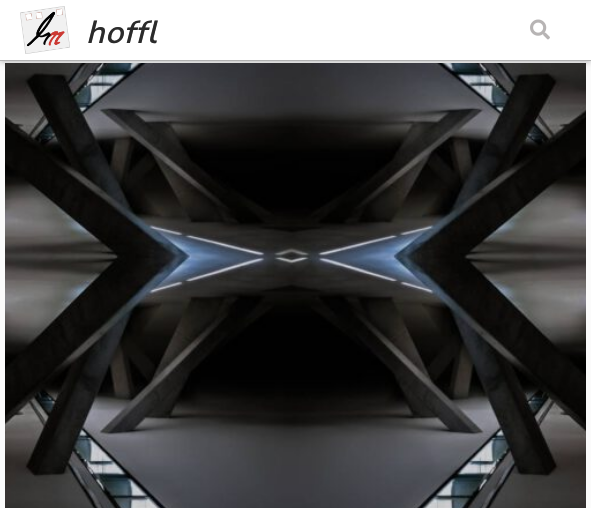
void draw(SkCanvas* canvas) {
	SkPaint paint;
	paint.setAntiAlias(true);
	auto spacedText = [&](const char* s, float x, float y, const SkFont& font, const SkPaint& ink, float letter, float word) {
		std::vector<SkGlyphID> glyphs(font.countText(s, strlen(s), SkTextEncoding::kUTF8));
		std::vector<float> xs(glyphs.size());
		font.textToGlyphs(s, strlen(s), SkTextEncoding::kUTF8, glyphs);
		font.getXPos(glyphs, xs, x);
		float extra = 0;
		for (size_t i = 0; i < glyphs.size(); i++) {
			xs[i] += extra;
			extra += letter + word * (glyphs[i] == font.unicharToGlyph(' '));
		}
		canvas->drawTextBlob(SkTextBlob::MakeFromPosHGlyphs(glyphs, xs, y, font), 0, 0, ink);
	};
	canvas->clear(0xfffbfbfb);
	paint.setColor(0x5c000000);
	paint.setMaskFilter(SkMaskFilter::MakeBlur(kNormal_SkBlurStyle, 3.5));
	canvas->drawRect(SkRect::MakeXYWH(0, 0, 591, 61), paint);
	paint.setMaskFilter(nullptr);
	paint.setColor(0xffffffff);
	canvas->drawRect(SkRect::MakeXYWH(0, 0, 591, 60), paint);
	paint.setColor(0xffb1b1b1);
	canvas->drawRect(SkRect::MakeXYWH(0, 60, 591, 1), paint);
	canvas->drawImageRect(SkImages::DeferredFromEncodedData(SkData::MakeFromFileName("img1.png")), SkRect::MakeXYWH(20, 6, 50, 48), SkSamplingOptions());
	SkFont f1(fontMgr->matchFamilyStyle("Nunito Sans", SkFontStyle(600, SkFontStyle::kNormal_Width, SkFontStyle::kItalic_Slant)), 32);
	f1.setSubpixel(true);
	paint.setColor(0xff2b2b2b);
	spacedText("hoffl", 86, 43, f1, paint, 0.5, 0);
	canvas->drawImageRect(SkImages::DeferredFromEncodedData(SkData::MakeFromFileName("img2.png")), SkRect::MakeXYWH(530, 19, 20, 21), SkSamplingOptions());
	canvas->drawImageRect(SkImages::DeferredFromEncodedData(SkData::MakeFromFileName("img3.png")), SkRect::MakeXYWH(5, 63, 581, 445), SkSamplingOptions());
}
